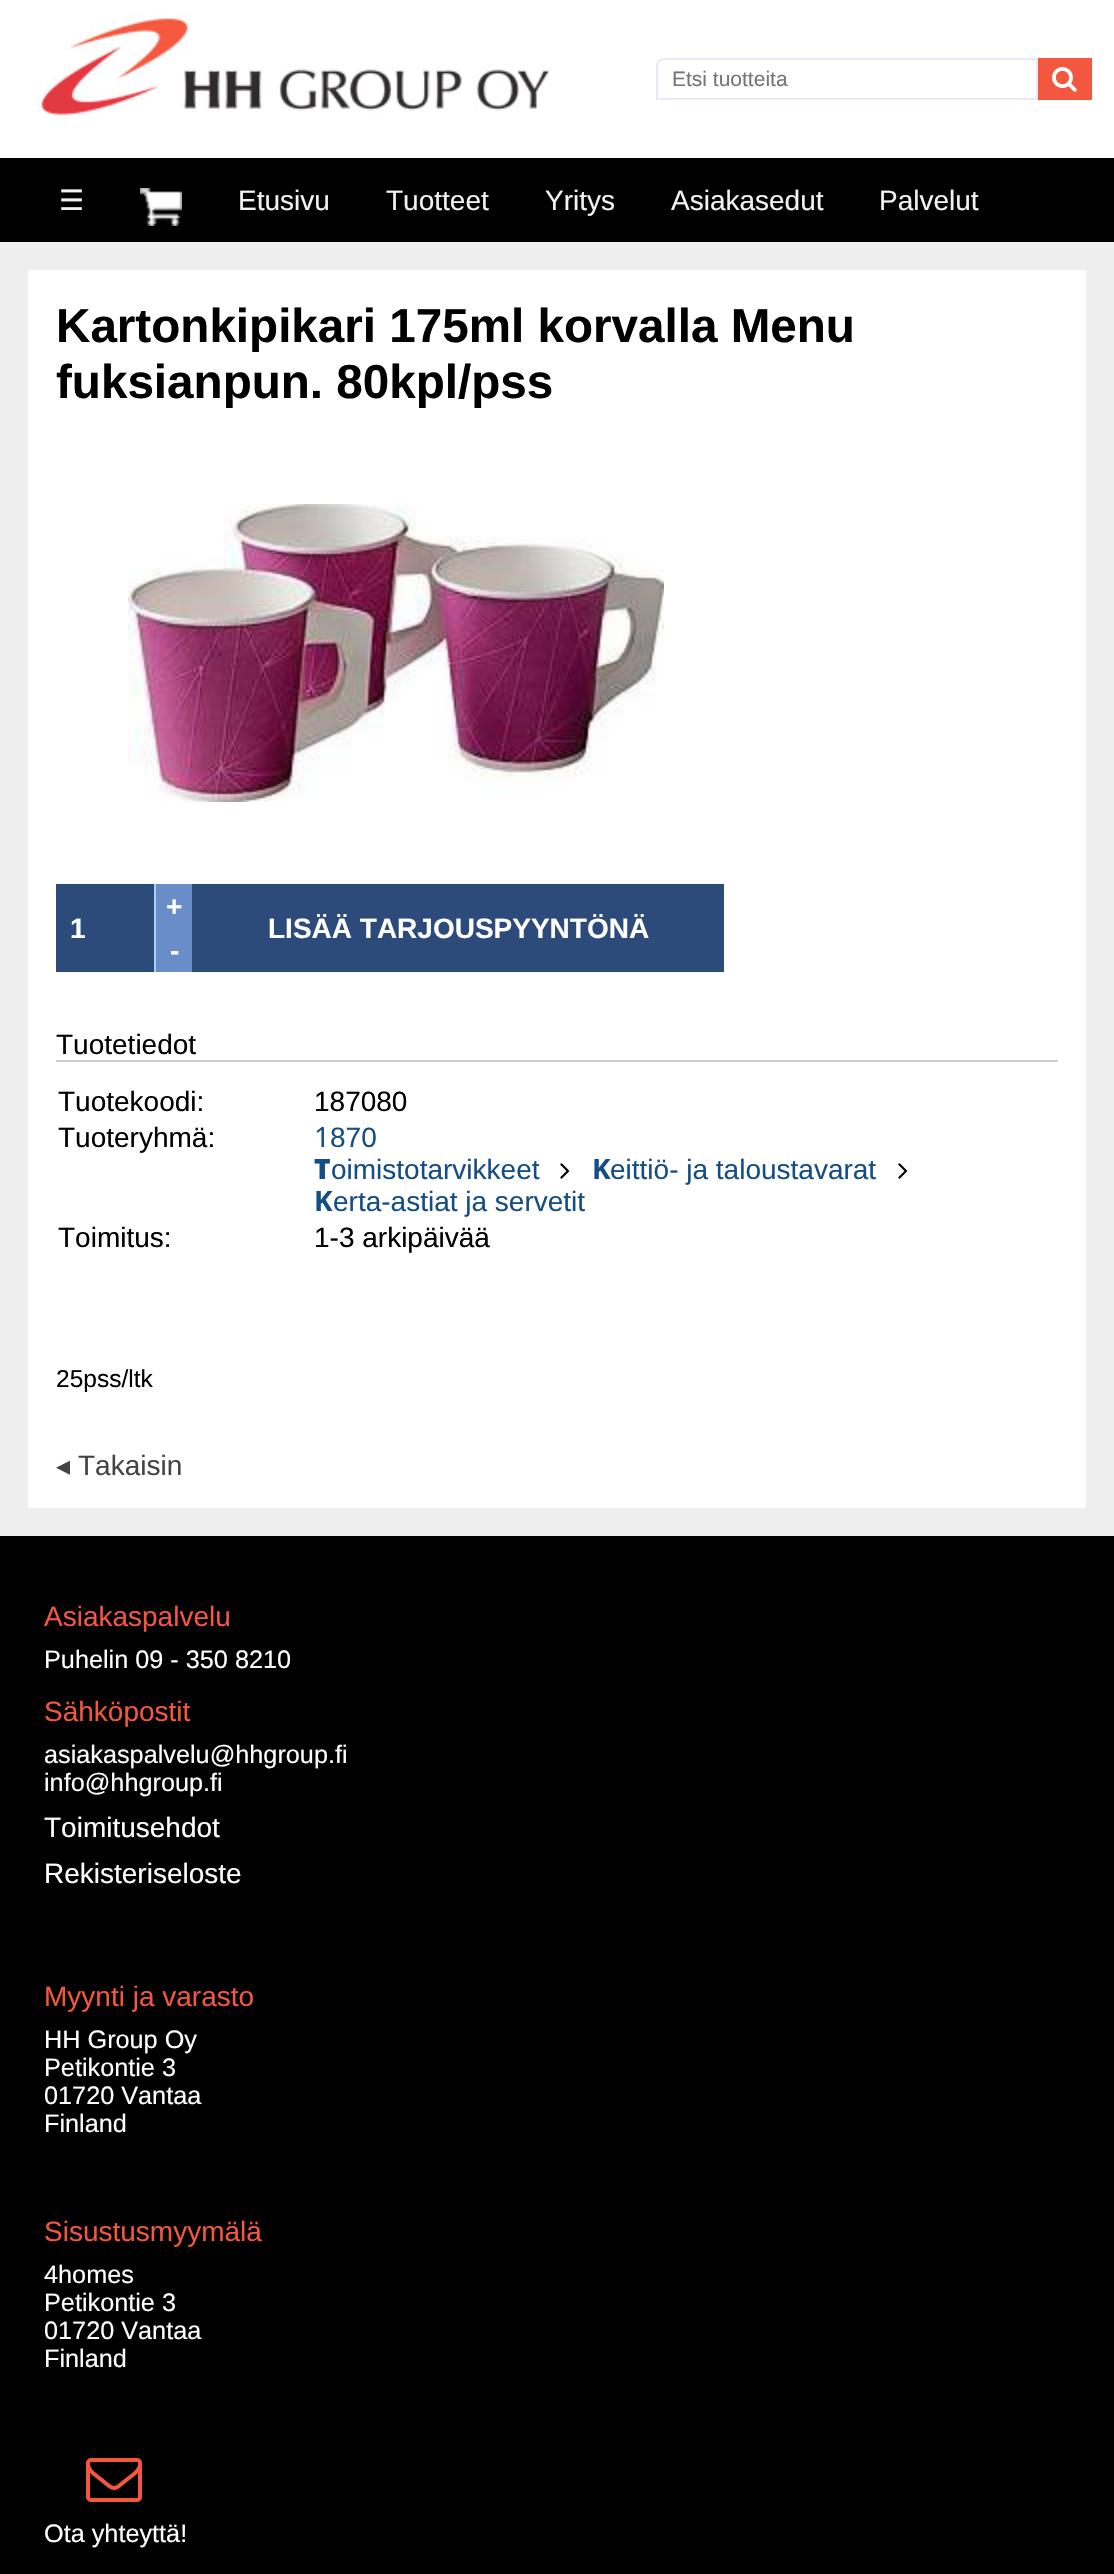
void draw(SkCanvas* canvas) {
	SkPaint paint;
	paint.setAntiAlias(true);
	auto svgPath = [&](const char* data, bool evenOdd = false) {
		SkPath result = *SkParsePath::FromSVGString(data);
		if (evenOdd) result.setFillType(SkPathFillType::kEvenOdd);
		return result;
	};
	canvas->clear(0xffffffff);
	canvas->drawImageRect(SkImages::DeferredFromEncodedData(SkData::MakeFromFileName("img1.png")), SkRect::MakeXYWH(39, 13, 511, 103), SkSamplingOptions());
	paint.setStroke(true);
	paint.setStrokeWidth(2);
	paint.setColor(0xffe8e8ff);
	canvas->drawPath(svgPath("M664 59H1037V99H657V66C657 62 660 59 664 59Z"), paint);
	SkFont f1(fontMgr->matchFamilyStyle("Liberation Sans", SkFontStyle::Normal()), 21);
	f1.setSubpixel(true);
	paint.setStroke(false);
	paint.setColor(0xff757575);
	canvas->drawString("Etsi tuotteita", 672, 86, f1, paint);
	paint.setColor(0xfff3573f);
	canvas->drawRect(SkRect::MakeXYWH(1038, 58, 54, 42), paint);
	canvas->drawImageRect(SkImages::DeferredFromEncodedData(SkData::MakeFromFileName("img2.png")), SkRect::MakeXYWH(1052, 67, 25, 25), SkSamplingOptions());
	paint.setColor(0xff000000);
	canvas->drawRect(SkRect::MakeXYWH(0, 158, 1114, 84), paint);
	SkFont f2(fontMgr->matchFamilyStyle("DejaVu Sans", SkFontStyle::Normal()), 28);
	f2.setSubpixel(true);
	paint.setColor(0xfff2f2f2);
	canvas->drawString("☰", 59, 210, f2, paint);
	canvas->drawImageRect(SkImages::DeferredFromEncodedData(SkData::MakeFromFileName("img3.png")), SkRect::MakeXYWH(140, 188, 42, 38), SkSamplingOptions());
	SkFont f3(fontMgr->matchFamilyStyle("Liberation Sans", SkFontStyle::Normal()), 28);
	f3.setSubpixel(true);
	canvas->drawString("Etusivu", 238, 210, f3, paint);
	canvas->drawString("Tuotteet", 386, 210, f3, paint);
	canvas->drawString("Yritys", 545, 210, f3, paint);
	canvas->drawString("Asiakasedut", 671, 210, f3, paint);
	canvas->drawString("Palvelut", 879, 210, f3, paint);
	paint.setColor(0xffeeeeee);
	canvas->drawRect(SkRect::MakeXYWH(0, 242, 1114, 1294), paint);
	paint.setColor(0xffffffff);
	canvas->drawRect(SkRect::MakeXYWH(28, 270, 1058, 1238), paint);
	SkFont f4(fontMgr->matchFamilyStyle("Liberation Sans", SkFontStyle::Bold()), 47.6);
	f4.setSubpixel(true);
	paint.setColor(0xff000000);
	canvas->drawString("Kartonkipikari 175ml korvalla Menu", 56, 342, f4, paint);
	canvas->drawString("fuksianpun. 80kpl/pss", 56, 398, f4, paint);
	canvas->drawImageRect(SkImages::DeferredFromEncodedData(SkData::MakeFromFileName("img4.png")), SkRect::MakeXYWH(128, 504, 536, 298), SkSamplingOptions());
	paint.setColor(0xff2c4a7a);
	canvas->drawRect(SkRect::MakeXYWH(56, 884, 98, 88), paint);
	SkFont f5(fontMgr->matchFamilyStyle("Liberation Sans", SkFontStyle::Bold()), 28);
	f5.setSubpixel(true);
	paint.setColor(0xffffffff);
	canvas->drawString("1", 70, 938, f5, paint);
	paint.setColor(0xff688dc9);
	canvas->drawRect(SkRect::MakeXYWH(156, 884, 36, 88), paint);
	paint.setColor(0xffa8cff9);
	canvas->drawRect(SkRect::MakeXYWH(154, 884, 2, 88), paint);
	paint.setColor(0xffffffff);
	canvas->drawString("+", 166, 916, f5, paint);
	canvas->drawString("-", 170, 960, f5, paint);
	paint.setColor(0xff2c4a7a);
	canvas->drawRect(SkRect::MakeXYWH(192, 884, 532, 88), paint);
	paint.setColor(0xffffffff);
	canvas->drawString("LISÄÄ TARJOUSPYYNTÖNÄ", 268, 938, f5, paint);
	paint.setColor(0xffcccccc);
	canvas->drawRect(SkRect::MakeXYWH(56, 1060, 1002, 2), paint);
	paint.setColor(0xff000000);
	canvas->drawString("Tuotetiedot", 56, 1054, f3, paint);
	canvas->drawString("Tuotekoodi:", 58, 1111, f3, paint);
	canvas->drawString("187080", 314, 1111, f3, paint);
	canvas->drawString("Tuoteryhmä:", 58, 1147, f3, paint);
	SkFont f6(fontMgr->matchFamilyStyle("Noto Sans", SkFontStyle::Normal()), 28);
	f6.setSubpixel(true);
	paint.setColor(0xff154e86);
	canvas->drawString("1", 314, 1147, f6, paint);
	canvas->drawString("870", 330, 1147, f3, paint);
	SkFont f7(fontMgr->matchFamilyStyle("Noto Sans", SkFontStyle(900, SkFontStyle::kNormal_Width, SkFontStyle::kUpright_Slant)), 28);
	f7.setSubpixel(true);
	canvas->drawString("T", 314, 1179, f7, paint);
	canvas->drawString("oimistotarvikkeet", 331, 1179, f3, paint);
	canvas->drawImageRect(SkImages::DeferredFromEncodedData(SkData::MakeFromFileName("img5.png")), SkRect::MakeXYWH(560, 1163, 10, 16), SkSamplingOptions());
	SkFont f8(fontMgr->matchFamilyStyle("Noto Sans", SkFontStyle::Bold()), 28);
	f8.setSubpixel(true);
	canvas->drawString("K", 592, 1179, f8, paint);
	canvas->drawString("eittiö- ja taloustavarat", 610, 1179, f3, paint);
	canvas->drawImageRect(SkImages::DeferredFromEncodedData(SkData::MakeFromFileName("img5.png")), SkRect::MakeXYWH(898, 1163, 10, 16), SkSamplingOptions());
	canvas->drawString("K", 314, 1211, f8, paint);
	canvas->drawString("erta-astiat ja servetit", 333, 1211, f3, paint);
	paint.setColor(0xff000000);
	canvas->drawString("Toimitus:", 58, 1247, f3, paint);
	canvas->drawString("1-3 arkipäivää", 314, 1247, f3, paint);
	SkFont f9(fontMgr->matchFamilyStyle("Liberation Sans", SkFontStyle::Normal()), 24.5);
	f9.setSubpixel(true);
	canvas->drawString("25pss/ltk", 56, 1387, f9, paint);
	paint.setColor(0xff444444);
	canvas->drawString("◂", 56, 1475, f2, paint);
	canvas->drawString("Takaisin", 78, 1475, f3, paint);
	paint.setColor(0xff000000);
	canvas->drawRect(SkRect::MakeXYWH(0, 1536, 1114, 1038), paint);
	paint.setColor(0xfff3573f);
	canvas->drawString("Asiakaspalvelu", 44, 1626, f3, paint);
	SkFont f10(fontMgr->matchFamilyStyle("Liberation Sans", SkFontStyle::Normal()), 25.25);
	f10.setSubpixel(true);
	paint.setColor(0xffffffff);
	canvas->drawString("Puhelin 09 - 350 8210", 44, 1668, f10, paint);
	paint.setColor(0xfff3573f);
	canvas->drawString("Sähköpostit", 44, 1721, f3, paint);
	paint.setColor(0xffffffff);
	canvas->drawString("asiakaspalvelu@hhgroup.fi", 44, 1763, f10, paint);
	canvas->drawString("info@hhgroup.fi", 44, 1791, f10, paint);
	canvas->drawString("Toimitusehdot", 44, 1837, f3, paint);
	canvas->drawString("Rekisteriseloste", 44, 1883, f3, paint);
	paint.setColor(0xfff3573f);
	canvas->drawString("Myynti ja varasto", 44, 2006, f3, paint);
	paint.setColor(0xffffffff);
	canvas->drawString("HH Group Oy", 44, 2048, f10, paint);
	canvas->drawString("Petikontie 3", 44, 2076, f10, paint);
	canvas->drawString("01720 Vantaa", 44, 2104, f10, paint);
	canvas->drawString("Finland", 44, 2132, f10, paint);
	paint.setColor(0xfff3573f);
	canvas->drawString("Sisustusmyymälä", 44, 2241, f3, paint);
	paint.setColor(0xffffffff);
	canvas->drawString("4homes", 44, 2283, f10, paint);
	canvas->drawString("Petikontie 3", 44, 2311, f10, paint);
	canvas->drawString("01720 Vantaa", 44, 2339, f10, paint);
	canvas->drawString("Finland", 44, 2367, f10, paint);
	canvas->drawImageRect(SkImages::DeferredFromEncodedData(SkData::MakeFromFileName("img6.png")), SkRect::MakeXYWH(86, 2458, 56, 44), SkSamplingOptions());
	canvas->drawString("Ota yhteyttä!", 44, 2542, f10, paint);
}
